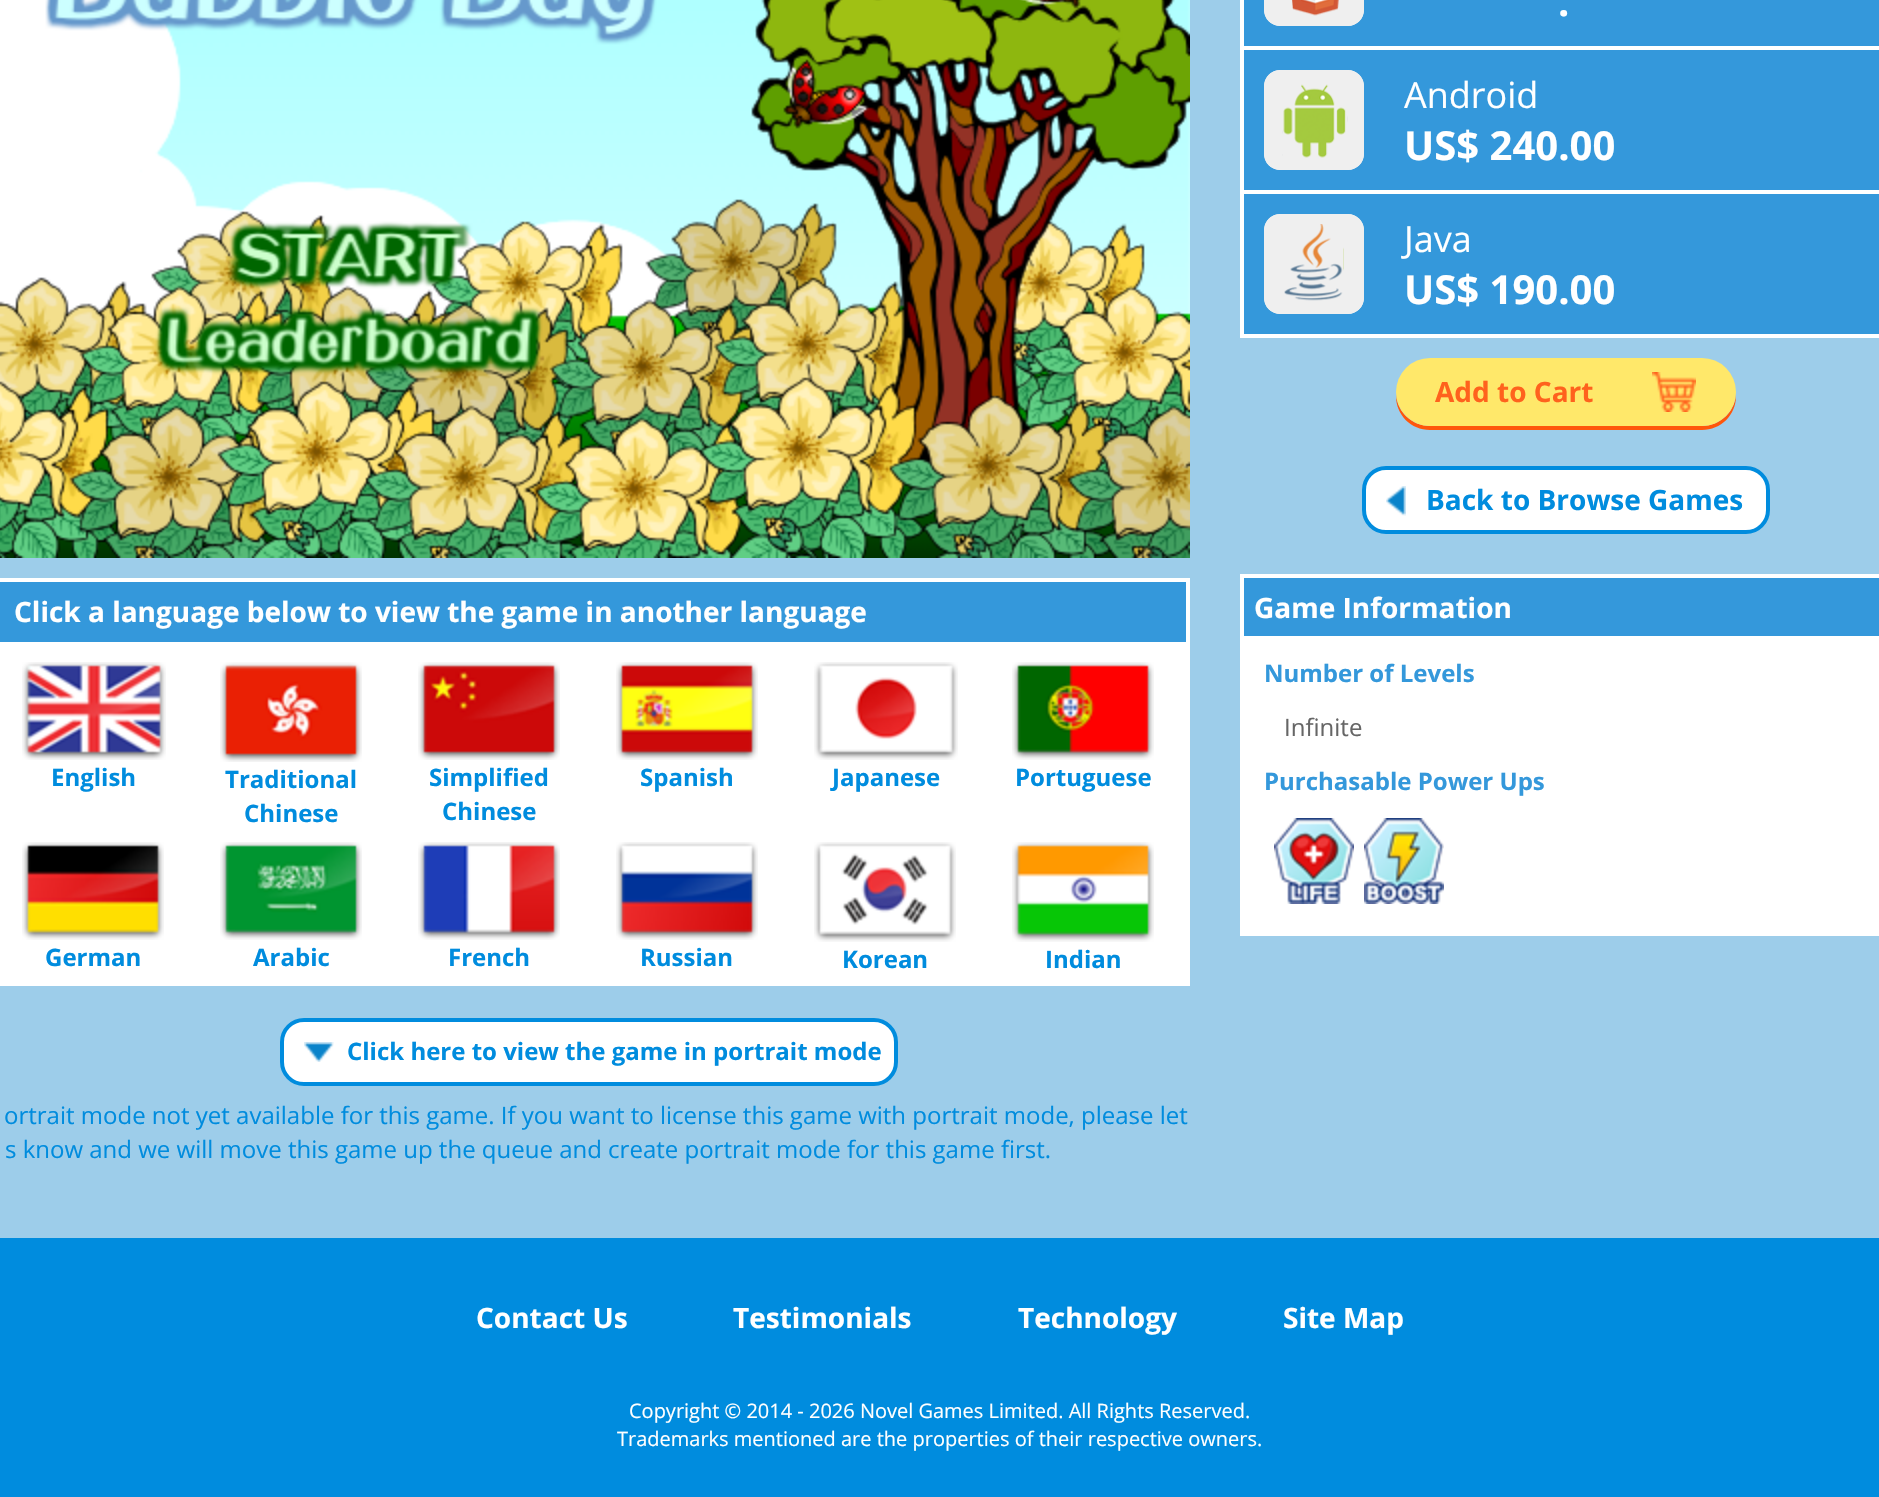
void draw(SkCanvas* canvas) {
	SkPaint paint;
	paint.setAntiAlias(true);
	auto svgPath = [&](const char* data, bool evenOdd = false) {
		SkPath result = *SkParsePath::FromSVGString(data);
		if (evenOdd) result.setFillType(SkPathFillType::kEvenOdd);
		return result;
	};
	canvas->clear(0xff008cde);
	paint.setColor(0xff9dcdea);
	canvas->drawRect(SkRect::MakeXYWH(0, 0, 1879, 1238), paint);
	canvas->drawImageRect(SkImages::DeferredFromEncodedData(SkData::MakeFromFileName("img1.png")), SkRect::MakeXYWH(0, 0, 1190, 558), SkSamplingOptions());
	paint.setColor(0xff3498db);
	canvas->drawRect(SkRect::MakeXYWH(1242, -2, 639, 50), paint);
	paint.setStroke(true);
	paint.setStrokeWidth(4);
	paint.setColor(0xffffffff);
	canvas->drawRect(SkRect::MakeXYWH(1242, -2, 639, 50), paint);
	paint.setStroke(false);
	paint.setColor(0xffefefef);
	canvas->drawRoundRect(SkRect::MakeXYWH(1264, -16, 100, 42), 16, 16, paint);
	canvas->drawImageRect(SkImages::DeferredFromEncodedData(SkData::MakeFromFileName("img2.png")), SkRect::MakeXYWH(1264, 0, 100, 26), SkSamplingOptions());
	SkFont f1(fontMgr->matchFamilyStyle("Open Sans", SkFontStyle::Bold()), 40);
	f1.setSubpixel(true);
	paint.setColor(0xffffffff);
	canvas->drawString(".", 1558, 16, f1, paint);
	paint.setColor(0xff3498db);
	canvas->drawRect(SkRect::MakeXYWH(1242, 48, 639, 144), paint);
	paint.setStroke(true);
	paint.setColor(0xffffffff);
	canvas->drawRect(SkRect::MakeXYWH(1242, 48, 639, 144), paint);
	paint.setStroke(false);
	paint.setColor(0xffefefef);
	canvas->drawRoundRect(SkRect::MakeXYWH(1264, 70, 100, 100), 16, 16, paint);
	canvas->drawImageRect(SkImages::DeferredFromEncodedData(SkData::MakeFromFileName("img3.png")), SkRect::MakeXYWH(1264, 70, 100, 100), SkSamplingOptions());
	SkFont f2(fontMgr->matchFamilyStyle("Open Sans", SkFontStyle::Normal()), 36);
	f2.setSubpixel(true);
	paint.setColor(0xffffffff);
	canvas->drawString("Android", 1404, 108, f2, paint);
	canvas->drawString("US$ 240.00", 1404, 160, f1, paint);
	paint.setColor(0xff3498db);
	canvas->drawRect(SkRect::MakeXYWH(1242, 192, 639, 144), paint);
	paint.setStroke(true);
	paint.setColor(0xffffffff);
	canvas->drawRect(SkRect::MakeXYWH(1242, 192, 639, 144), paint);
	paint.setStroke(false);
	paint.setColor(0xffefefef);
	canvas->drawRoundRect(SkRect::MakeXYWH(1264, 214, 100, 100), 16, 16, paint);
	canvas->drawImageRect(SkImages::DeferredFromEncodedData(SkData::MakeFromFileName("img4.png")), SkRect::MakeXYWH(1264, 214, 100, 100), SkSamplingOptions());
	paint.setColor(0xffffffff);
	canvas->drawString("Java", 1404, 252, f2, paint);
	canvas->drawString("US$ 190.00", 1404, 304, f1, paint);
	paint.setColor(0xffff560b);
	canvas->drawPath(svgPath("M1396 394V396C1396 415 1411 430 1430 430H1702C1721 430 1736 415 1736 396V394C1735 412 1720 426 1702 426H1430C1412 426 1397 412 1396 394Z"), paint);
	paint.setColor(0xffffe86a);
	canvas->drawRoundRect(SkRect::MakeXYWH(1396, 358, 340, 68), 34, 34, paint);
	SkFont f3(fontMgr->matchFamilyStyle("Open Sans", SkFontStyle::Bold()), 28);
	f3.setSubpixel(true);
	paint.setColor(0xffff621d);
	canvas->drawString("Add to Cart", 1435, 402, f3, paint);
	canvas->drawImageRect(SkImages::DeferredFromEncodedData(SkData::MakeFromFileName("img5.png")), SkRect::MakeXYWH(1652, 372, 44, 40), SkSamplingOptions());
	paint.setColor(0xffffffff);
	canvas->drawRoundRect(SkRect::MakeXYWH(1364, 468, 404, 64), 22, 22, paint);
	paint.setStroke(true);
	paint.setColor(0xff008cde);
	canvas->drawRoundRect(SkRect::MakeXYWH(1364, 468, 404, 64), 22, 22, paint);
	canvas->drawImageRect(SkImages::DeferredFromEncodedData(SkData::MakeFromFileName("img6.png")), SkRect::MakeXYWH(1386, 486, 20, 30), SkSamplingOptions());
	paint.setStroke(false);
	canvas->drawString("Back to Browse Games", 1426, 510, f3, paint);
	paint.setColor(0xffffffff);
	canvas->drawRect(SkRect::MakeXYWH(0, 578, 1190, 408), paint);
	paint.setColor(0xff3498db);
	canvas->drawRect(SkRect::MakeXYWH(0, 582, 1186, 60), paint);
	paint.setColor(0xffffffff);
	canvas->drawString("Click a language below to view the game in another language", 14, 622, f3, paint);
	canvas->drawImageRect(SkImages::DeferredFromEncodedData(SkData::MakeFromFileName("img7.png")), SkRect::MakeXYWH(22, 662, 144, 98), SkSamplingOptions());
	SkFont f4(fontMgr->matchFamilyStyle("Open Sans", SkFontStyle::Bold()), 24);
	f4.setSubpixel(true);
	paint.setColor(0xff008cde);
	canvas->drawString("English", 51, 786, f4, paint);
	canvas->drawImageRect(SkImages::DeferredFromEncodedData(SkData::MakeFromFileName("img8.png")), SkRect::MakeXYWH(220, 662, 142, 100), SkSamplingOptions());
	canvas->drawString("Traditional", 225, 788, f4, paint);
	canvas->drawString("Chinese", 244, 822, f4, paint);
	canvas->drawImageRect(SkImages::DeferredFromEncodedData(SkData::MakeFromFileName("img9.png")), SkRect::MakeXYWH(418, 662, 142, 98), SkSamplingOptions());
	canvas->drawString("Simplified", 429, 786, f4, paint);
	canvas->drawString("Chinese", 442, 820, f4, paint);
	canvas->drawImageRect(SkImages::DeferredFromEncodedData(SkData::MakeFromFileName("img10.png")), SkRect::MakeXYWH(616, 662, 142, 98), SkSamplingOptions());
	canvas->drawString("Spanish", 640, 786, f4, paint);
	canvas->drawImageRect(SkImages::DeferredFromEncodedData(SkData::MakeFromFileName("img11.png")), SkRect::MakeXYWH(814, 662, 144, 98), SkSamplingOptions());
	canvas->drawString("Japanese", 832, 786, f4, paint);
	canvas->drawImageRect(SkImages::DeferredFromEncodedData(SkData::MakeFromFileName("img12.png")), SkRect::MakeXYWH(1012, 662, 142, 98), SkSamplingOptions());
	canvas->drawString("Portuguese", 1015, 786, f4, paint);
	canvas->drawImageRect(SkImages::DeferredFromEncodedData(SkData::MakeFromFileName("img13.png")), SkRect::MakeXYWH(22, 842, 142, 98), SkSamplingOptions());
	canvas->drawString("German", 45, 966, f4, paint);
	canvas->drawImageRect(SkImages::DeferredFromEncodedData(SkData::MakeFromFileName("img14.png")), SkRect::MakeXYWH(220, 842, 142, 98), SkSamplingOptions());
	canvas->drawString("Arabic", 253, 966, f4, paint);
	canvas->drawImageRect(SkImages::DeferredFromEncodedData(SkData::MakeFromFileName("img15.png")), SkRect::MakeXYWH(418, 842, 142, 98), SkSamplingOptions());
	canvas->drawString("French", 448, 966, f4, paint);
	canvas->drawImageRect(SkImages::DeferredFromEncodedData(SkData::MakeFromFileName("img16.png")), SkRect::MakeXYWH(616, 842, 142, 98), SkSamplingOptions());
	canvas->drawString("Russian", 640, 966, f4, paint);
	canvas->drawImageRect(SkImages::DeferredFromEncodedData(SkData::MakeFromFileName("img17.png")), SkRect::MakeXYWH(814, 842, 142, 100), SkSamplingOptions());
	canvas->drawString("Korean", 842, 968, f4, paint);
	canvas->drawImageRect(SkImages::DeferredFromEncodedData(SkData::MakeFromFileName("img18.png")), SkRect::MakeXYWH(1012, 842, 142, 100), SkSamplingOptions());
	canvas->drawString("Indian", 1045, 968, f4, paint);
	paint.setColor(0xffffffff);
	canvas->drawRect(SkRect::MakeXYWH(1240, 574, 639, 362), paint);
	paint.setColor(0xff3498db);
	canvas->drawRect(SkRect::MakeXYWH(1244, 578, 635, 58), paint);
	paint.setColor(0xffffffff);
	canvas->drawString("Game Information", 1254, 618, f3, paint);
	paint.setColor(0xff3498db);
	canvas->drawString("Number of Levels", 1264, 682, f4, paint);
	SkFont f5(fontMgr->matchFamilyStyle("Open Sans", SkFontStyle::Normal()), 24);
	f5.setSubpixel(true);
	paint.setColor(0xff666666);
	canvas->drawString("Infinite", 1284, 736, f5, paint);
	paint.setColor(0xff3498db);
	canvas->drawString("Purchasable Power Ups", 1264, 790, f4, paint);
	canvas->drawImageRect(SkImages::DeferredFromEncodedData(SkData::MakeFromFileName("img19.png")), SkRect::MakeXYWH(1274, 818, 80, 86), SkSamplingOptions());
	canvas->drawImageRect(SkImages::DeferredFromEncodedData(SkData::MakeFromFileName("img20.png")), SkRect::MakeXYWH(1364, 818, 80, 86), SkSamplingOptions());
	paint.setColor(0xffffffff);
	canvas->drawRoundRect(SkRect::MakeXYWH(282, 1020, 614, 64), 22, 22, paint);
	paint.setStroke(true);
	paint.setColor(0xff008cde);
	canvas->drawRoundRect(SkRect::MakeXYWH(282, 1020, 614, 64), 22, 22, paint);
	canvas->drawImageRect(SkImages::DeferredFromEncodedData(SkData::MakeFromFileName("img21.png")), SkRect::MakeXYWH(304, 1042, 30, 20), SkSamplingOptions());
	paint.setStroke(false);
	canvas->drawString("Click here to view the game in portrait mode", 347, 1060, f4, paint);
	canvas->drawString("ortrait mode not yet available for this game. If you want to license this game with portrait mode, please let", 4, 1124, f5, paint);
	canvas->drawString("s know and we will move this game up the queue and create portrait mode for this game first.", 5, 1158, f5, paint);
	paint.setColor(0xffffffff);
	canvas->drawString("Contact Us", 476, 1328, f3, paint);
	canvas->drawString("Testimonials", 733, 1328, f3, paint);
	canvas->drawString("Technology", 1018, 1328, f3, paint);
	canvas->drawString("Site Map", 1283, 1328, f3, paint);
	SkFont f6(fontMgr->matchFamilyStyle("Open Sans", SkFontStyle::Normal()), 20);
	f6.setSubpixel(true);
	canvas->drawString("Copyright © 2014 - 2026 Novel Games Limited. All Rights Reserved.", 629, 1418, f6, paint);
	canvas->drawString("Trademarks mentioned are the properties of their respective owners.", 617, 1446, f6, paint);
}
